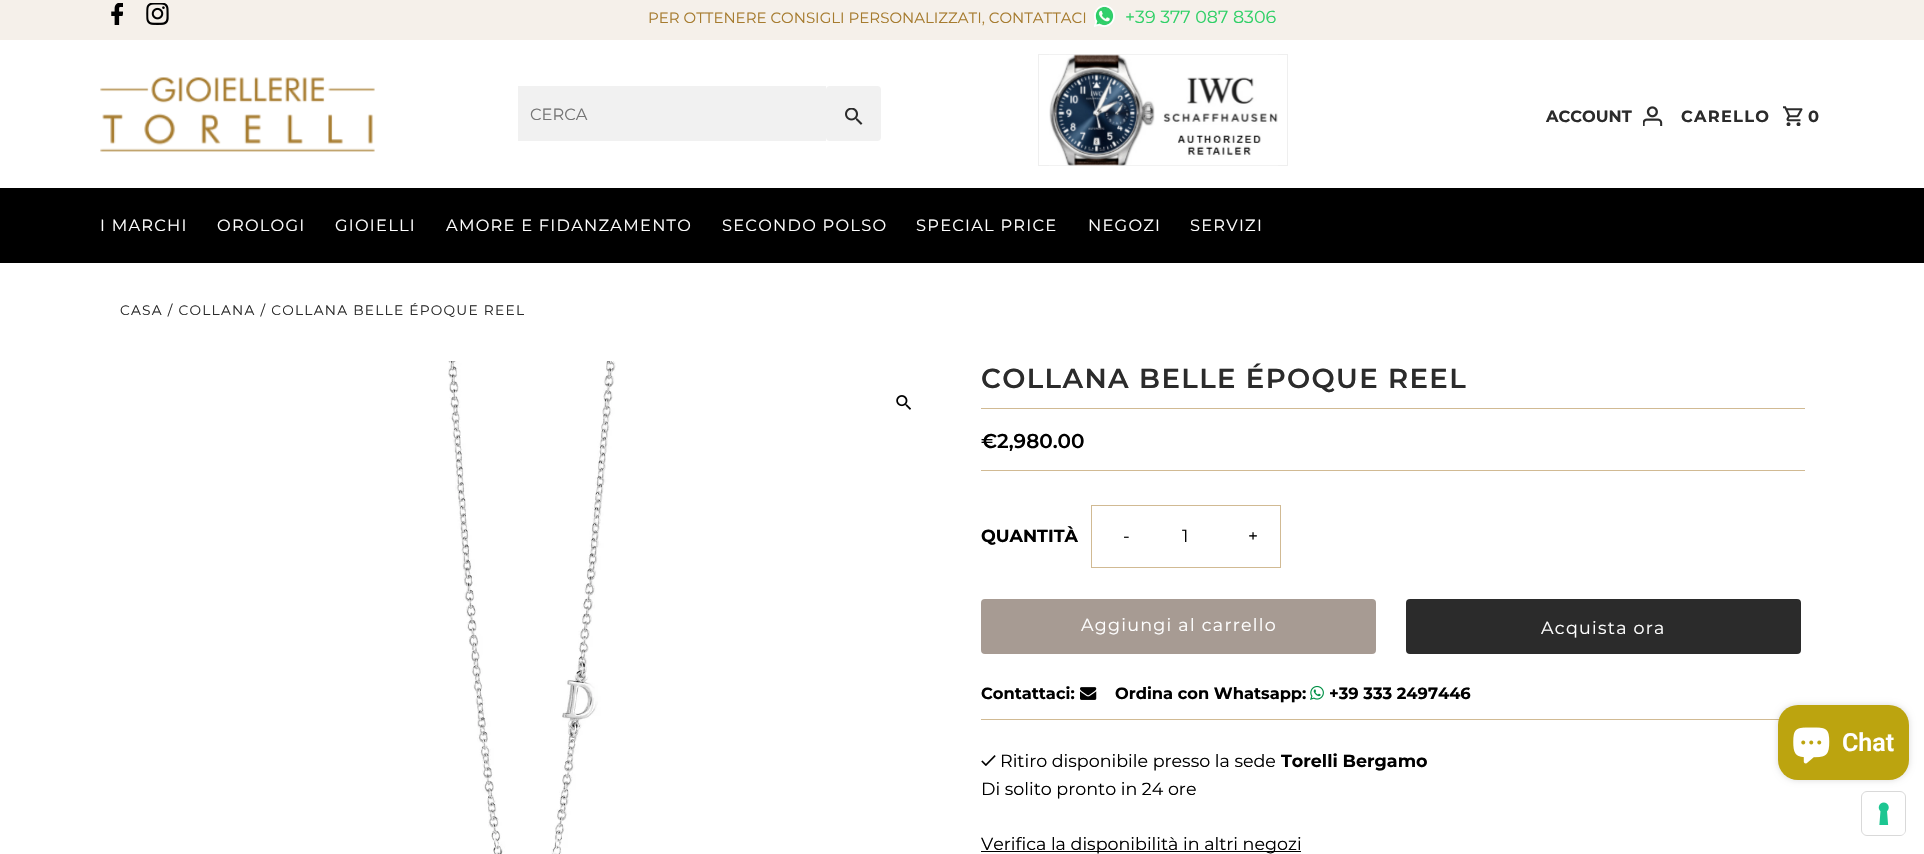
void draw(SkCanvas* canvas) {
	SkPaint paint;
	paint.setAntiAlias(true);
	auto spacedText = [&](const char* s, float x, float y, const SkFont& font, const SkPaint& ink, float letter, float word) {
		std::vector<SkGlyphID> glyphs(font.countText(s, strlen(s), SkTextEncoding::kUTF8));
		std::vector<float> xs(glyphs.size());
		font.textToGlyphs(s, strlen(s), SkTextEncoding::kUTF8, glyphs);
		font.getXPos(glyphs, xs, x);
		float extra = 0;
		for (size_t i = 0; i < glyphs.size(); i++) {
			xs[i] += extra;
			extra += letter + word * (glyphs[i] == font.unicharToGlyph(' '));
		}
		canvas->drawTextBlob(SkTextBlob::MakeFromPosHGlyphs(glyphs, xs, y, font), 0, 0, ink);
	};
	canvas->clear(0xffffffff);
	paint.setColor(0xfff5f0ea);
	canvas->drawRect(SkRect::MakeXYWH(0, 0, 1924, 40), paint);
	canvas->drawImageRect(SkImages::DeferredFromEncodedData(SkData::MakeFromFileName("img1.png")), SkRect::MakeXYWH(111, 3, 12, 22), SkSamplingOptions());
	canvas->drawImageRect(SkImages::DeferredFromEncodedData(SkData::MakeFromFileName("img2.png")), SkRect::MakeXYWH(146, 3, 23, 22), SkSamplingOptions());
	SkFont f1(fontMgr->matchFamilyStyle("Montserrat", SkFontStyle::Normal()), 15);
	f1.setSubpixel(true);
	paint.setColor(0xffa67b2e);
	canvas->drawString("PER OTTENERE CONSIGLI PERSONALIZZATI, CONTATTACI", 648, 23, f1, paint);
	canvas->drawImageRect(SkImages::DeferredFromEncodedData(SkData::MakeFromFileName("img3.png")), SkRect::MakeXYWH(1094, 5, 21, 22), SkSamplingOptions());
	SkFont f2(fontMgr->matchFamilyStyle("Montserrat", SkFontStyle::Normal()), 17.5);
	f2.setSubpixel(true);
	paint.setColor(0xff2ed066);
	canvas->drawString("+39 377 087 8306", 1125, 23, f2, paint);
	canvas->drawImageRect(SkImages::DeferredFromEncodedData(SkData::MakeFromFileName("img4.png")), SkRect::MakeXYWH(100, 77, 275, 75), SkSamplingOptions());
	paint.setColor(0xfff1f1f1);
	canvas->drawRect(SkRect::MakeXYWH(518, 86, 308, 55), paint);
	SkFont f3(fontMgr->matchFamilyStyle("Montserrat", SkFontStyle::Normal()), 16.25);
	f3.setSubpixel(true);
	paint.setColor(0xff757575);
	canvas->drawString("CERCA", 530, 120, f3, paint);
	paint.setColor(0xfff1f1f1);
	canvas->drawRoundRect(SkRect::MakeXYWH(826, 86, 55, 55), 4, 4, paint);
	canvas->drawImageRect(SkImages::DeferredFromEncodedData(SkData::MakeFromFileName("img5.png")), SkRect::MakeXYWH(845, 108, 18, 17), SkSamplingOptions());
	paint.setStroke(true);
	paint.setStrokeWidth(1);
	paint.setColor(0xffefefef);
	canvas->drawRect(SkRect::MakeXYWH(1038.5, 54.5, 249, 111), paint);
	canvas->drawImageRect(SkImages::DeferredFromEncodedData(SkData::MakeFromFileName("img6.png")), SkRect::MakeXYWH(1049, 54, 229, 112), SkSamplingOptions());
	SkFont f4(fontMgr->matchFamilyStyle("montserrat", SkFontStyle::Bold()), 16.25);
	f4.setSubpixel(true);
	paint.setStroke(false);
	paint.setColor(0xff2b2b2b);
	canvas->drawString("ACCOUNT", 1546, 122, f4, paint);
	canvas->drawImageRect(SkImages::DeferredFromEncodedData(SkData::MakeFromFileName("img7.png")), SkRect::MakeXYWH(1643, 106, 20, 20), SkSamplingOptions());
	spacedText("CARELLO", 1681, 122, f4, paint, 1.25, 0);
	canvas->drawImageRect(SkImages::DeferredFromEncodedData(SkData::MakeFromFileName("img8.png")), SkRect::MakeXYWH(1783, 106, 20, 20), SkSamplingOptions());
	spacedText("0", 1808, 122, f4, paint, 1.25, 0);
	paint.setColor(0xff000000);
	canvas->drawRect(SkRect::MakeXYWH(0, 188, 1924, 75), paint);
	paint.setColor(0xffffffff);
	spacedText("I MARCHI", 100, 231, f3, paint, 1.25, 0);
	spacedText("OROLOGI", 217, 231, f3, paint, 1.25, 0);
	spacedText("GIOIELLI", 335, 231, f3, paint, 1.25, 0);
	spacedText("AMORE E FIDANZAMENTO", 446, 231, f3, paint, 1.25, 0);
	spacedText("SECONDO POLSO", 722, 231, f3, paint, 1.25, 0);
	spacedText("SPECIAL PRICE", 916, 231, f3, paint, 1.25, 0);
	spacedText("NEGOZI", 1088, 231, f3, paint, 1.25, 0);
	spacedText("SERVIZI", 1190, 231, f3, paint, 1.25, 0);
	SkFont f5(fontMgr->matchFamilyStyle("Montserrat", SkFontStyle::Normal()), 13.75);
	f5.setSubpixel(true);
	paint.setColor(0xff2b2b2b);
	spacedText("CASA / COLLANA / COLLANA BELLE ÉPOQUE REEL", 120, 315, f5, paint, 1.25, 0);
	canvas->drawImageRect(SkImages::DeferredFromEncodedData(SkData::MakeFromFileName("img9.png")), SkRect::MakeXYWH(448, 361, 168, 493), SkSamplingOptions());
	canvas->drawImageRect(SkImages::DeferredFromEncodedData(SkData::MakeFromFileName("img10.png")), SkRect::MakeXYWH(896, 395, 15, 15), SkSamplingOptions());
	paint.setColor(0xffd1ba93);
	canvas->drawRect(SkRect::MakeXYWH(981, 408, 824, 1), paint);
	SkFont f6(fontMgr->matchFamilyStyle("Montserrat", SkFontStyle(600, SkFontStyle::kNormal_Width, SkFontStyle::kUpright_Slant)), 27.5);
	f6.setSubpixel(true);
	paint.setColor(0xff2b2b2b);
	spacedText("COLLANA BELLE ÉPOQUE REEL", 981, 388, f6, paint, 1.4, 0);
	paint.setColor(0xffd1ba93);
	canvas->drawRect(SkRect::MakeXYWH(981, 470, 824, 1), paint);
	SkFont f7(fontMgr->matchFamilyStyle("Montserrat", SkFontStyle(600, SkFontStyle::kNormal_Width, SkFontStyle::kUpright_Slant)), 20);
	f7.setSubpixel(true);
	paint.setColor(0xff000000);
	canvas->drawString("€2,980.00", 981, 448, f7, paint);
	SkFont f8(fontMgr->matchFamilyStyle("montserrat", SkFontStyle::Bold()), 17.5);
	f8.setSubpixel(true);
	canvas->drawString("QUANTITÀ", 981, 542, f8, paint);
	paint.setStroke(true);
	paint.setColor(0xffd1ba93);
	canvas->drawRect(SkRect::MakeXYWH(1091.5, 505.5, 189, 62), paint);
	paint.setStroke(false);
	paint.setColor(0xff000000);
	spacedText("-", 1123, 542, f2, paint, 1.25, 0);
	canvas->drawString("1", 1182, 542, f2, paint);
	spacedText("+", 1248, 542, f2, paint, 1.25, 0);
	paint.setColor(0xffd1ba93);
	canvas->drawRect(SkRect::MakeXYWH(981, 719, 798, 1), paint);
	paint.setColor(0xffa79b93);
	canvas->drawRoundRect(SkRect::MakeXYWH(982.5, 600.5, 392, 52), 2.5, 2.5, paint);
	paint.setStroke(true);
	paint.setStrokeWidth(3);
	canvas->drawRoundRect(SkRect::MakeXYWH(982.5, 600.5, 392, 52), 2.5, 2.5, paint);
	paint.setStroke(false);
	paint.setColor(0xffffffff);
	spacedText("Aggiungi al carrello", 1081, 631, f2, paint, 1.25, 0);
	paint.setColor(0xff2b2b2b);
	canvas->drawRoundRect(SkRect::MakeXYWH(1406, 599, 395, 55), 4, 4, paint);
	paint.setColor(0xffffffff);
	spacedText("Acquista ora", 1541, 634, f2, paint, 1.25, 0);
	paint.setColor(0xff000000);
	canvas->drawString("Contattaci:", 981, 699, f4, paint);
	canvas->drawImageRect(SkImages::DeferredFromEncodedData(SkData::MakeFromFileName("img11.png")), SkRect::MakeXYWH(1080, 687, 17, 13), SkSamplingOptions());
	canvas->drawString("Ordina con Whatsapp:", 1115, 699, f4, paint);
	canvas->drawImageRect(SkImages::DeferredFromEncodedData(SkData::MakeFromFileName("img12.png")), SkRect::MakeXYWH(1310, 685, 14, 15), SkSamplingOptions());
	canvas->drawString("+39 333 2497446", 1329, 699, f4, paint);
	canvas->drawImageRect(SkImages::DeferredFromEncodedData(SkData::MakeFromFileName("img13.png")), SkRect::MakeXYWH(981, 755, 15, 11), SkSamplingOptions());
	canvas->drawString("Ritiro disponibile presso la sede", 1000, 767, f2, paint);
	canvas->drawString("Torelli Bergamo", 1281, 767, f8, paint);
	canvas->drawString("Di solito pronto in 24 ore", 981, 795, f2, paint);
	canvas->drawRect(SkRect::MakeXYWH(981, 851, 320, 1), paint);
	canvas->drawString("Verifica la disponibilità in altri negozi", 981, 850, f2, paint);
	paint.setColor(0x26000000);
	paint.setMaskFilter(SkMaskFilter::MakeBlur(kNormal_SkBlurStyle, 3));
	canvas->drawRoundRect(SkRect::MakeXYWH(1778, 705, 131, 75), 20, 20, paint);
	paint.setMaskFilter(nullptr);
	paint.setColor(0xffbca40f);
	canvas->drawRoundRect(SkRect::MakeXYWH(1778, 705, 131, 75), 20, 20, paint);
	canvas->drawImageRect(SkImages::DeferredFromEncodedData(SkData::MakeFromFileName("img14.png")), SkRect::MakeXYWH(1793, 727, 37, 37), SkSamplingOptions());
	SkFont f9(fontMgr->matchFamilyStyle("Roboto", SkFontStyle(600, SkFontStyle::kNormal_Width, SkFontStyle::kUpright_Slant)), 25);
	f9.setSubpixel(true);
	paint.setColor(0xffffffff);
	canvas->drawString("Chat", 1842, 751, f9, paint);
	paint.setStroke(true);
	paint.setStrokeWidth(1);
	paint.setColor(0xffd9d9d9);
	canvas->drawRoundRect(SkRect::MakeXYWH(1861.5, 791.5, 44, 44), 5.5, 5.5, paint);
	paint.setStroke(false);
	paint.setColor(0xffffffff);
	canvas->drawRoundRect(SkRect::MakeXYWH(1863, 793, 42, 42), 5, 5, paint);
	canvas->drawImageRect(SkImages::DeferredFromEncodedData(SkData::MakeFromFileName("img15.png")), SkRect::MakeXYWH(1878, 802, 11, 23), SkSamplingOptions());
}
